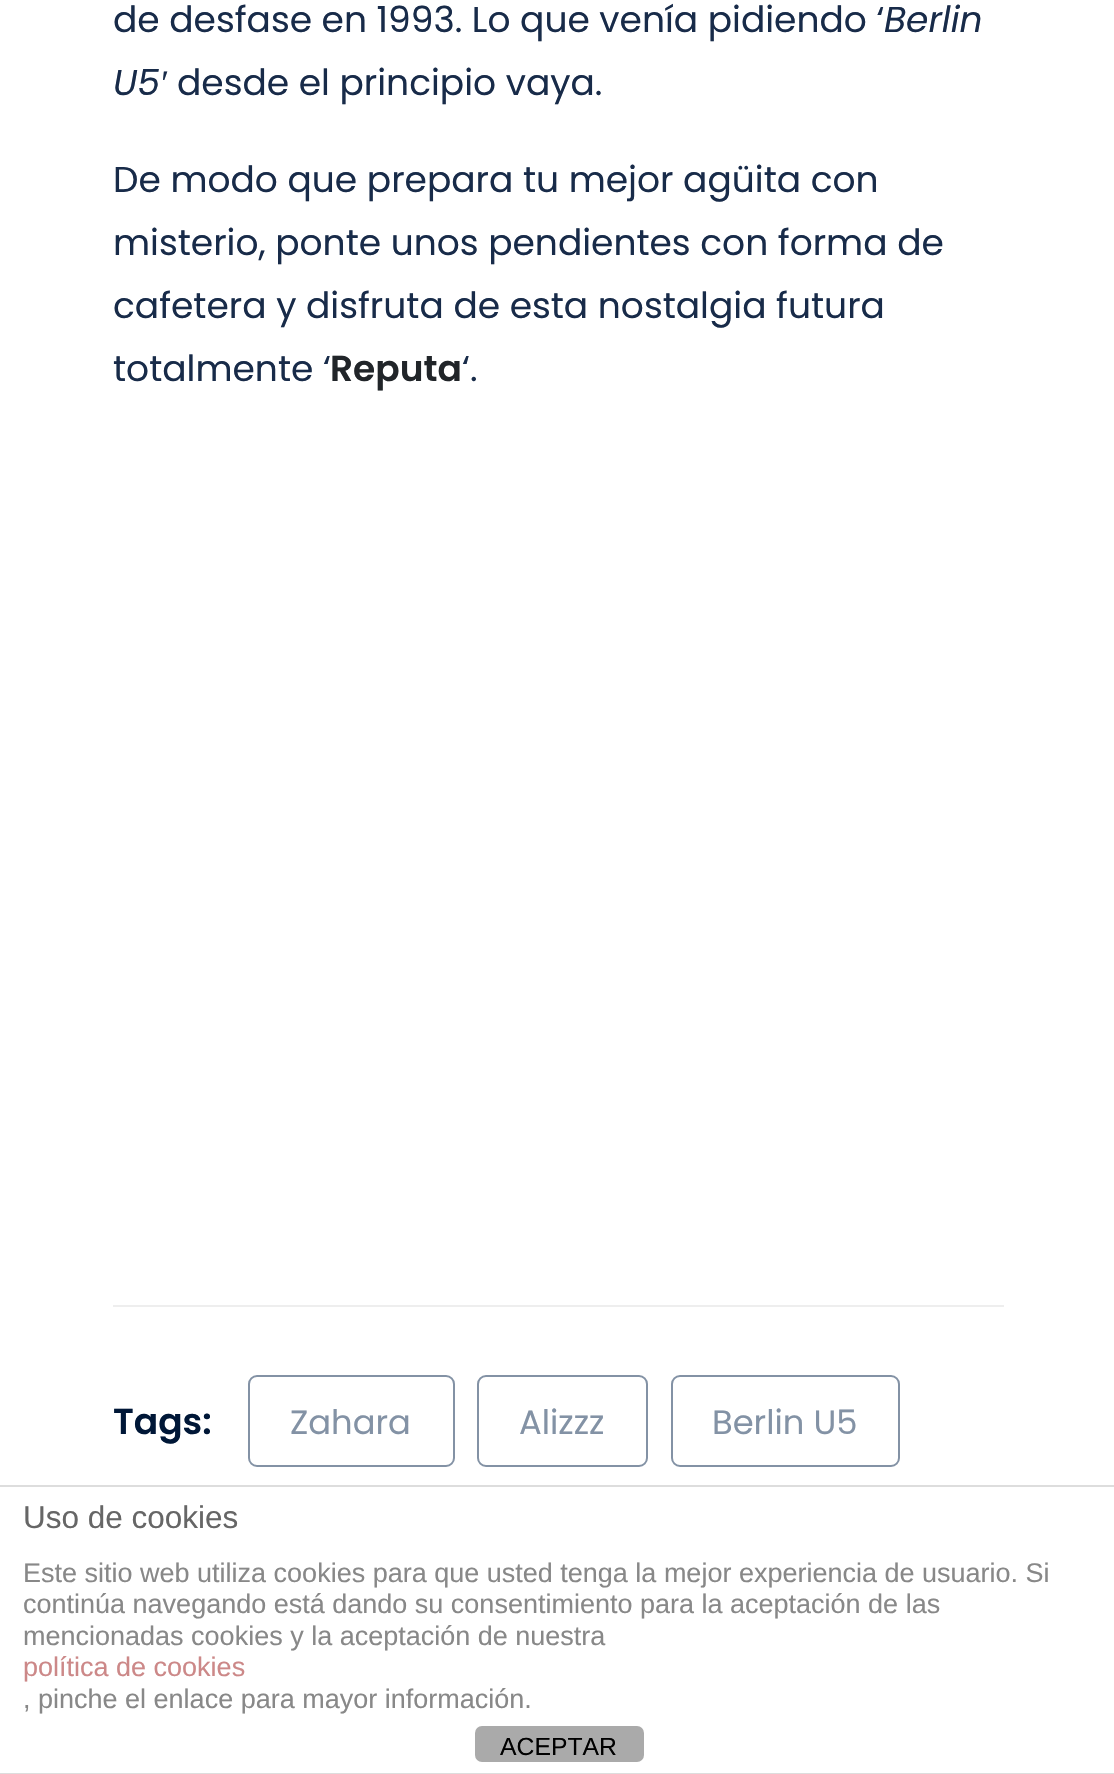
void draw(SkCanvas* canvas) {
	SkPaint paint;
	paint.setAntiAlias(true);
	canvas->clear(0xffffffff);
	SkFont f1(fontMgr->matchFamilyStyle("Poppins", SkFontStyle::Normal()), 36);
	f1.setSubpixel(true);
	paint.setColor(0xff182b49);
	canvas->drawString("de desfase en 1993. Lo que venía pidiendo ‘", 113, 32, f1, paint);
	SkFont f2(fontMgr->matchFamilyStyle("Poppins", SkFontStyle::Italic()), 36);
	f2.setSubpixel(true);
	canvas->drawString("Berlin", 884, 32, f2, paint);
	canvas->drawString("U5", 113, 95, f2, paint);
	SkFont f3(fontMgr->matchFamilyStyle("Liberation Serif", SkFontStyle::Italic()), 36);
	f3.setSubpixel(true);
	canvas->drawString("′", 159, 95, f3, paint);
	canvas->drawString("desde el principio vaya.", 177, 95, f1, paint);
	canvas->drawString("De modo que prepara tu mejor agüita con", 113, 192, f1, paint);
	canvas->drawString("misterio, ponte unos pendientes con forma de", 113, 255, f1, paint);
	canvas->drawString("cafetera y disfruta de esta nostalgia futura", 113, 318, f1, paint);
	canvas->drawString("totalmente ‘", 113, 381, f1, paint);
	SkFont f4(fontMgr->matchFamilyStyle("Poppins", SkFontStyle(600, SkFontStyle::kNormal_Width, SkFontStyle::kUpright_Slant)), 36);
	f4.setSubpixel(true);
	paint.setColor(0xff212529);
	canvas->drawString("Reputa", 330, 381, f4, paint);
	paint.setColor(0xff182b49);
	canvas->drawString("‘.", 462, 381, f1, paint);
	paint.setColor(0xffeeeeee);
	canvas->drawRect(SkRect::MakeXYWH(113, 1305, 891, 2), paint);
	paint.setColor(0xff001737);
	canvas->drawString("Tags:", 113, 1434, f4, paint);
	paint.setStroke(true);
	paint.setStrokeWidth(2);
	paint.setColor(0xff8392a5);
	canvas->drawRoundRect(SkRect::MakeXYWH(249, 1376, 205, 90), 8, 8, paint);
	SkFont f5(fontMgr->matchFamilyStyle("Poppins", SkFontStyle::Normal()), 33.75);
	f5.setSubpixel(true);
	paint.setStroke(false);
	canvas->drawString("Zahara", 290, 1434, f5, paint);
	paint.setStroke(true);
	canvas->drawRoundRect(SkRect::MakeXYWH(478, 1376, 169, 90), 8, 8, paint);
	paint.setStroke(false);
	canvas->drawString("Alizzz", 519, 1434, f5, paint);
	paint.setStroke(true);
	canvas->drawRoundRect(SkRect::MakeXYWH(672, 1376, 227, 90), 8, 8, paint);
	paint.setStroke(false);
	canvas->drawString("Berlin U5", 712, 1434, f5, paint);
	paint.setColor(0xffdddddd);
	canvas->drawRect(SkRect::MakeXYWH(0, 1485, 1114, 2), paint);
	canvas->drawRect(SkRect::MakeXYWH(0, 1773, 1114, 1), paint);
	SkFont f6(fontMgr->matchFamilyStyle("Liberation Sans", SkFontStyle::Normal()), 31.5);
	f6.setSubpixel(true);
	paint.setColor(0xff666666);
	canvas->drawString("Uso de cookies", 23, 1528, f6, paint);
	SkFont f7(fontMgr->matchFamilyStyle("Liberation Sans", SkFontStyle::Normal()), 27);
	f7.setSubpixel(true);
	paint.setColor(0xff888888);
	canvas->drawString("Este sitio web utiliza cookies para que usted tenga la mejor experiencia de usuario. Si", 23, 1582, f7, paint);
	canvas->drawString("continúa navegando está dando su consentimiento para la aceptación de las", 23, 1613, f7, paint);
	canvas->drawString("mencionadas cookies y la aceptación de nuestra", 23, 1645, f7, paint);
	paint.setColor(0xffcc8888);
	canvas->drawString("política de cookies", 23, 1676, f7, paint);
	paint.setColor(0xff888888);
	canvas->drawString(", pinche el enlace para mayor información.", 23, 1708, f7, paint);
	paint.setColor(0xffaaaaaa);
	canvas->drawRoundRect(SkRect::MakeXYWH(475, 1726, 169, 36), 7, 7, paint);
	SkFont f8(fontMgr->matchFamilyStyle("Liberation Sans", SkFontStyle::Normal()), 24.75);
	f8.setSubpixel(true);
	paint.setColor(0xff000000);
	canvas->drawString("ACEPTAR", 500, 1755, f8, paint);
}
